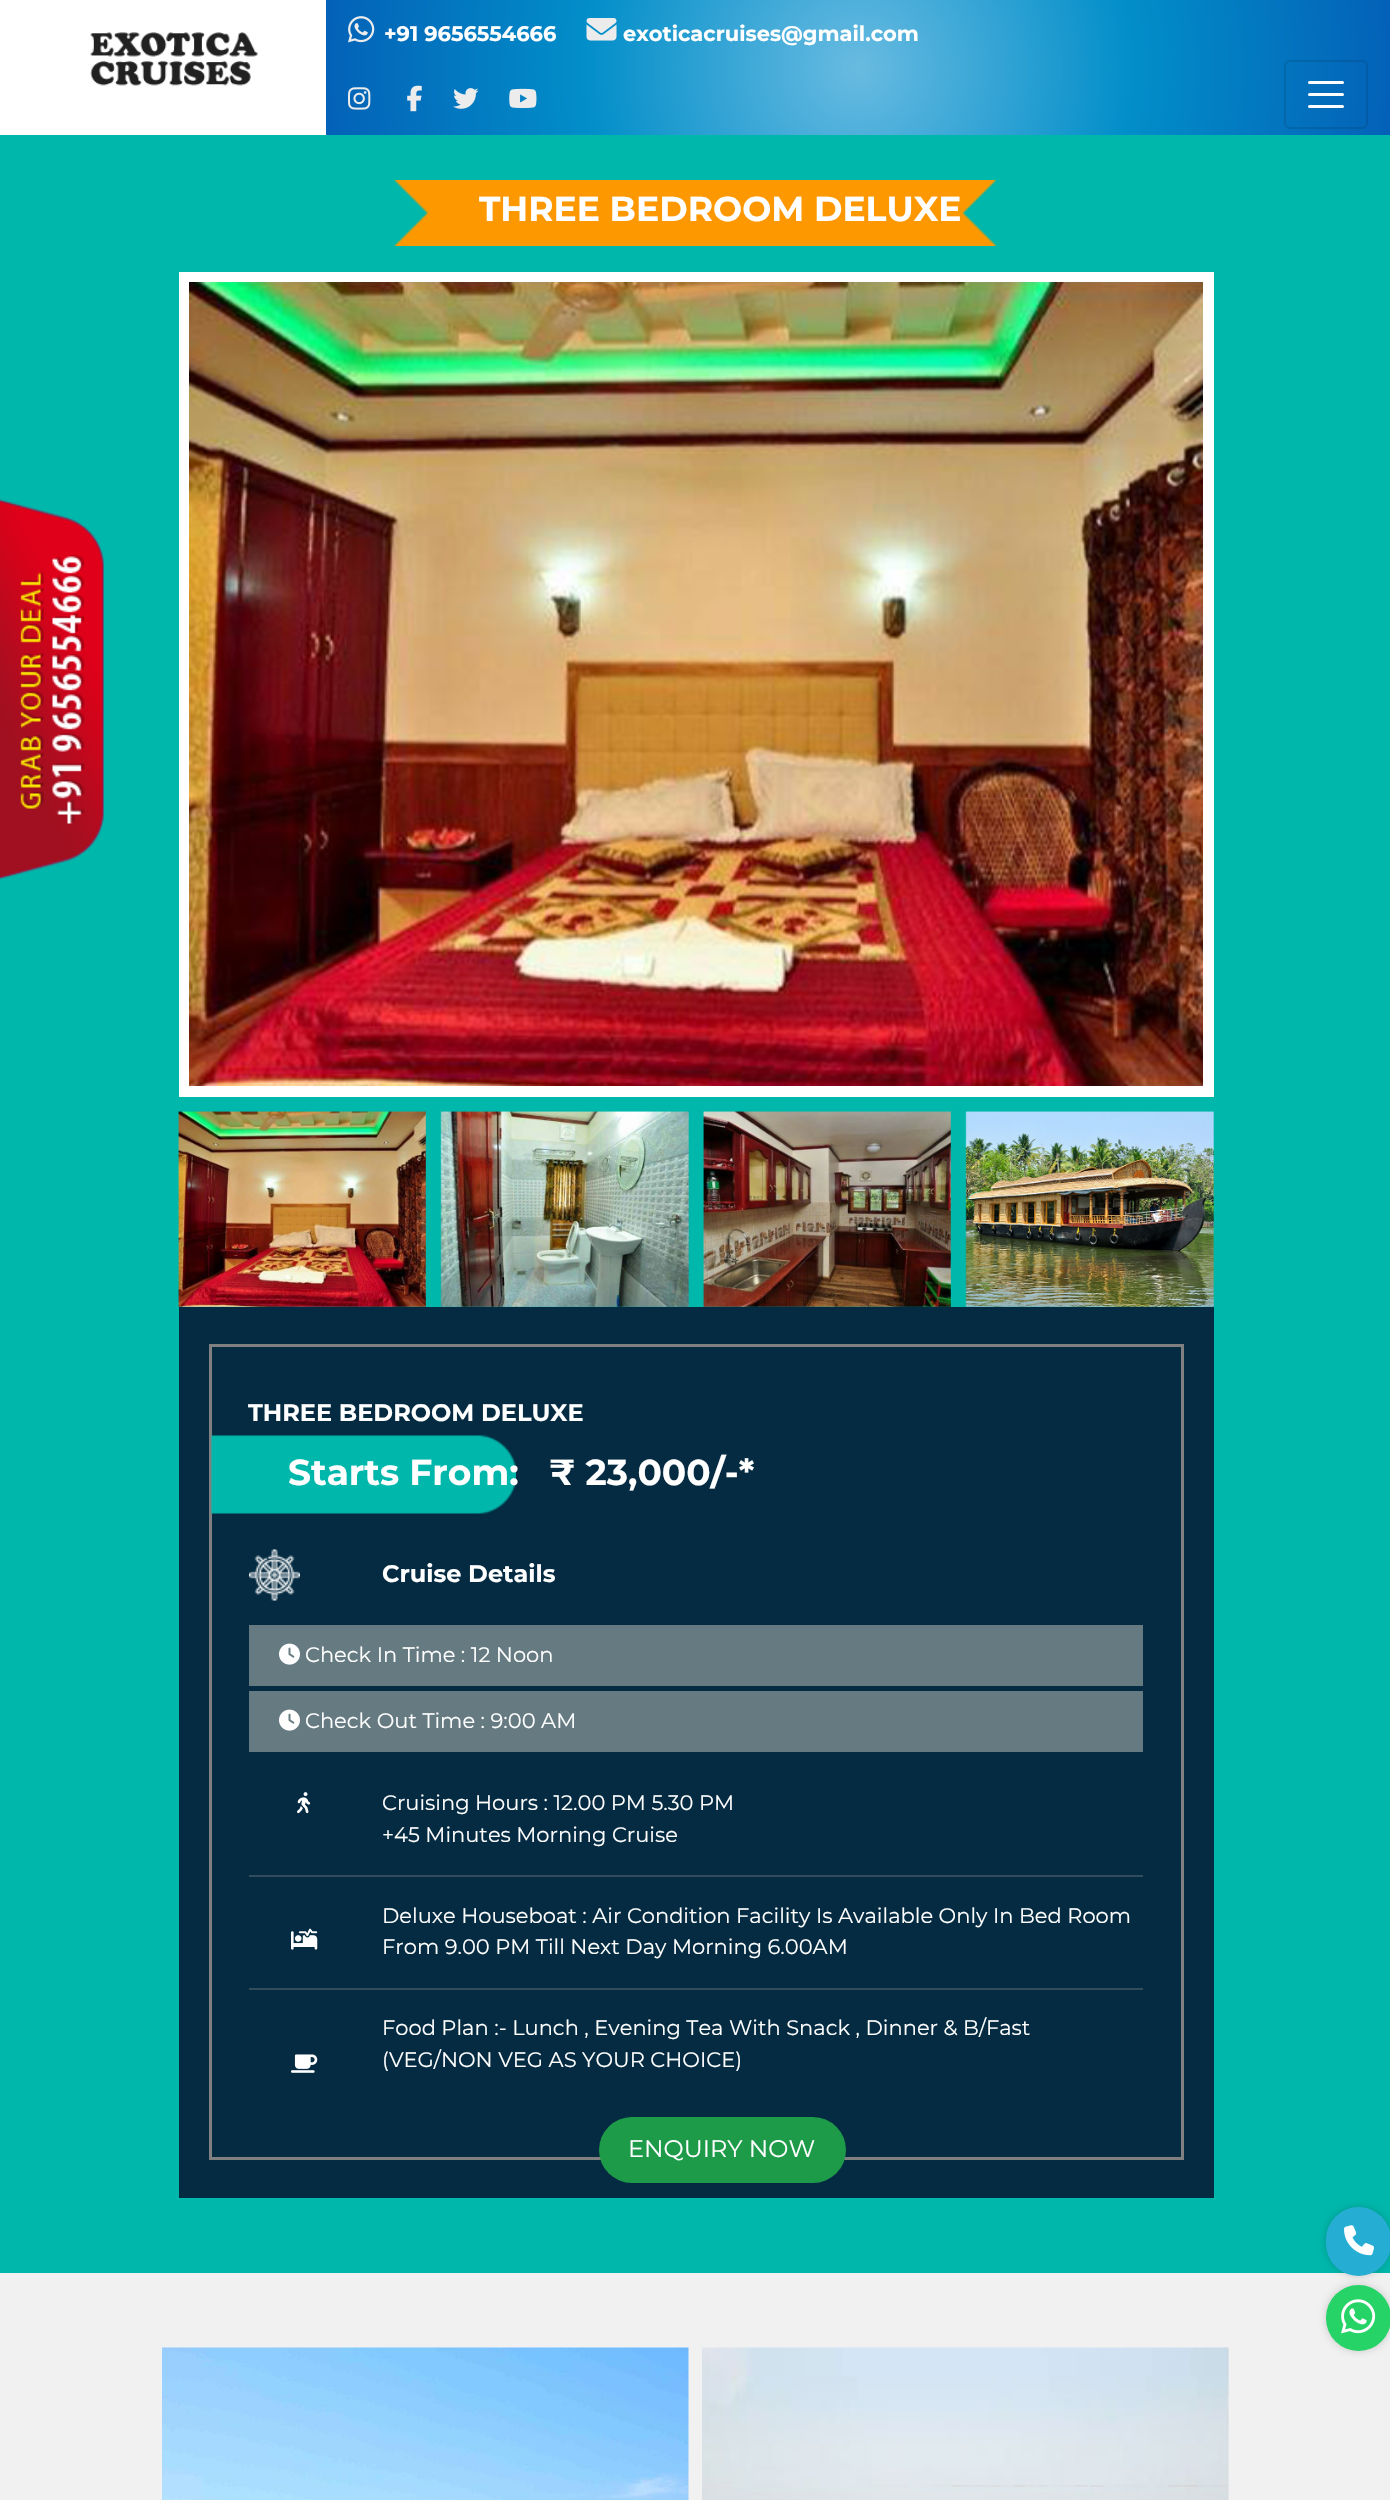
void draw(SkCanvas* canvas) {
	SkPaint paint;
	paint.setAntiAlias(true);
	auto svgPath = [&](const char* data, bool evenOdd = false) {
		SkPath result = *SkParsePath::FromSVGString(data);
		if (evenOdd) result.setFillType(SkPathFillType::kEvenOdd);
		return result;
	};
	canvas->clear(0xffffffff);
	canvas->drawImageRect(SkImages::DeferredFromEncodedData(SkData::MakeFromFileName("img1.png")), SkRect::MakeXYWH(90, 32, 168, 54), SkSamplingOptions());
	{
		const SkColor colors[] = {0xff68bbe1, 0xff028ec9, 0xff0361b7};
		const float stops[] = {0, 0.51, 1};
		paint.setShader(SkGradientShader::MakeRadial({858, 68}, 537, colors, stops, 3, SkTileMode::kClamp));
		paint.setAlpha(255);
	}
	canvas->drawRect(SkRect::MakeXYWH(326, 0, 1064, 135), paint);
	canvas->drawImageRect(SkImages::DeferredFromEncodedData(SkData::MakeFromFileName("img2.png")), SkRect::MakeXYWH(348, 16, 27, 27), SkSamplingOptions());
	SkFont f1(fontMgr->matchFamilyStyle("Montserrat", SkFontStyle::Bold()), 21);
	f1.setSubpixel(true);
	paint.setShader(nullptr);
	paint.setColor(0xffffffff);
	canvas->drawString("+91 9656554666", 384, 41, f1, paint);
	canvas->drawImageRect(SkImages::DeferredFromEncodedData(SkData::MakeFromFileName("img3.png")), SkRect::MakeXYWH(586, 18, 31, 23), SkSamplingOptions());
	canvas->drawString("exoticacruises@gmail.com", 623, 41, f1, paint);
	canvas->drawImageRect(SkImages::DeferredFromEncodedData(SkData::MakeFromFileName("img4.png")), SkRect::MakeXYWH(348, 87, 23, 23), SkSamplingOptions());
	canvas->drawImageRect(SkImages::DeferredFromEncodedData(SkData::MakeFromFileName("img5.png")), SkRect::MakeXYWH(407, 85, 15, 27), SkSamplingOptions());
	canvas->drawImageRect(SkImages::DeferredFromEncodedData(SkData::MakeFromFileName("img6.png")), SkRect::MakeXYWH(453, 88, 26, 21), SkSamplingOptions());
	canvas->drawImageRect(SkImages::DeferredFromEncodedData(SkData::MakeFromFileName("img7.png")), SkRect::MakeXYWH(509, 88, 28, 20), SkSamplingOptions());
	paint.setStroke(true);
	paint.setStrokeWidth(2);
	paint.setColor(0x1a000000);
	canvas->drawRoundRect(SkRect::MakeXYWH(1285, 61, 82, 67), 5, 5, paint);
	paint.setStrokeWidth(3);
	paint.setStrokeCap(SkPaint::kRound_Cap);
	paint.setColor(0xffffffff);
	canvas->drawPath(svgPath("M1309.5 82.5H1342.5M1309.5 94.5H1342.5M1309.5 106.5H1342.5"), paint);
	paint.setStroke(false);
	paint.setColor(0xff00b7ab);
	canvas->drawRect(SkRect::MakeXYWH(0, 135, 1390, 2138), paint);
	canvas->drawImageRect(SkImages::DeferredFromEncodedData(SkData::MakeFromFileName("img8.png")), SkRect::MakeXYWH(0, 499, 104, 381), SkSamplingOptions());
	canvas->drawImageRect(SkImages::DeferredFromEncodedData(SkData::MakeFromFileName("img9.png")), SkRect::MakeXYWH(394, 180, 602, 66), SkSamplingOptions());
	SkFont f2(fontMgr->matchFamilyStyle("Montserrat", SkFontStyle::Bold()), 34.5);
	f2.setSubpixel(true);
	paint.setColor(0xffffffff);
	canvas->drawString("THREE BEDROOM DELUXE", 479, 221, f2, paint);
	paint.setStroke(true);
	paint.setStrokeWidth(11);
	paint.setStrokeCap(SkPaint::kButt_Cap);
	canvas->drawRect(SkRect::MakeXYWH(184.5, 277.5, 1024, 814), paint);
	canvas->drawImageRect(SkImages::DeferredFromEncodedData(SkData::MakeFromFileName("img10.png")), SkRect::MakeXYWH(189, 282, 1014, 804), SkSamplingOptions());
	canvas->drawImageRect(SkImages::DeferredFromEncodedData(SkData::MakeFromFileName("img11.png")), SkRect::MakeXYWH(178, 1111, 248, 196), SkSamplingOptions());
	canvas->drawImageRect(SkImages::DeferredFromEncodedData(SkData::MakeFromFileName("img12.png")), SkRect::MakeXYWH(440, 1111, 249, 196), SkSamplingOptions());
	canvas->drawImageRect(SkImages::DeferredFromEncodedData(SkData::MakeFromFileName("img13.png")), SkRect::MakeXYWH(703, 1111, 248, 196), SkSamplingOptions());
	canvas->drawImageRect(SkImages::DeferredFromEncodedData(SkData::MakeFromFileName("img14.png")), SkRect::MakeXYWH(965, 1111, 249, 196), SkSamplingOptions());
	paint.setStroke(false);
	paint.setColor(0xff042b41);
	canvas->drawRect(SkRect::MakeXYWH(179, 1307, 1035, 891), paint);
	paint.setStroke(true);
	paint.setStrokeWidth(3);
	paint.setColor(0xff808080);
	canvas->drawRect(SkRect::MakeXYWH(210.5, 1345.5, 972, 813), paint);
	SkFont f3(fontMgr->matchFamilyStyle("Montserrat", SkFontStyle::Bold()), 24);
	f3.setSubpixel(true);
	paint.setStroke(false);
	paint.setColor(0xffffffff);
	canvas->drawString("THREE BEDROOM DELUXE", 248, 1421, f3, paint);
	canvas->drawImageRect(SkImages::DeferredFromEncodedData(SkData::MakeFromFileName("img15.png")), SkRect::MakeXYWH(211, 1435, 305, 79), SkSamplingOptions());
	SkFont f4(fontMgr->matchFamilyStyle("Montserrat", SkFontStyle::Bold()), 36);
	f4.setSubpixel(true);
	canvas->drawString("Starts From:   ₹ 23,000/-*", 288, 1485, f4, paint);
	canvas->drawImageRect(SkImages::DeferredFromEncodedData(SkData::MakeFromFileName("img16.png")), SkRect::MakeXYWH(249, 1549, 51, 52), SkSamplingOptions());
	canvas->drawString("Cruise Details", 382, 1582, f3, paint);
	paint.setColor(0xff657a81);
	canvas->drawRect(SkRect::MakeXYWH(249, 1625, 894, 61), paint);
	canvas->drawImageRect(SkImages::DeferredFromEncodedData(SkData::MakeFromFileName("img17.png")), SkRect::MakeXYWH(279, 1643, 21, 22), SkSamplingOptions());
	SkFont f5(fontMgr->matchFamilyStyle("Montserrat", SkFontStyle::Normal()), 21);
	f5.setSubpixel(true);
	paint.setColor(0xffffffff);
	canvas->drawString("Check In Time : 12 Noon", 305, 1662, f5, paint);
	paint.setColor(0xff657a81);
	canvas->drawRect(SkRect::MakeXYWH(249, 1691, 894, 61), paint);
	canvas->drawImageRect(SkImages::DeferredFromEncodedData(SkData::MakeFromFileName("img17.png")), SkRect::MakeXYWH(279, 1709, 21, 22), SkSamplingOptions());
	paint.setColor(0xffffffff);
	canvas->drawString("Check Out Time : 9:00 AM", 305, 1728, f5, paint);
	canvas->drawImageRect(SkImages::DeferredFromEncodedData(SkData::MakeFromFileName("img18.png")), SkRect::MakeXYWH(297, 1792, 14, 22), SkSamplingOptions());
	canvas->drawString("Cruising Hours : 12.00 PM 5.30 PM", 382, 1810, f5, paint);
	canvas->drawString("+45 Minutes Morning Cruise", 382, 1842, f5, paint);
	paint.setColor(0xff314d5d);
	canvas->drawRect(SkRect::MakeXYWH(249, 1875, 894, 2), paint);
	canvas->drawImageRect(SkImages::DeferredFromEncodedData(SkData::MakeFromFileName("img19.png")), SkRect::MakeXYWH(291, 1928, 27, 22), SkSamplingOptions());
	paint.setColor(0xffffffff);
	canvas->drawString("Deluxe Houseboat : Air Condition Facility Is Available Only In Bed Room", 382, 1923, f5, paint);
	canvas->drawString("From 9.00 PM Till Next Day Morning 6.00AM", 382, 1954, f5, paint);
	paint.setColor(0xff314d5d);
	canvas->drawRect(SkRect::MakeXYWH(249, 1988, 894, 2), paint);
	canvas->drawImageRect(SkImages::DeferredFromEncodedData(SkData::MakeFromFileName("img20.png")), SkRect::MakeXYWH(291, 2054, 27, 19), SkSamplingOptions());
	paint.setColor(0xffffffff);
	canvas->drawString("Food Plan :- Lunch , Evening Tea With Snack , Dinner & B/Fast", 382, 2035, f5, paint);
	canvas->drawString("(VEG/NON VEG AS YOUR CHOICE)", 382, 2067, f5, paint);
	paint.setColor(0xff1d9b48);
	canvas->drawRoundRect(SkRect::MakeXYWH(599, 2117, 247, 66), 33, 33, paint);
	SkFont f6(fontMgr->matchFamilyStyle("Montserrat", SkFontStyle::Normal()), 24);
	f6.setSubpixel(true);
	paint.setColor(0xffffffff);
	canvas->drawString("ENQUIRY NOW", 628, 2157, f6, paint);
	paint.setColor(0xfff1f1f1);
	canvas->drawRect(SkRect::MakeXYWH(0, 2273, 1390, 227), paint);
	paint.setColor(0xff000000);
	paint.setMaskFilter(SkMaskFilter::MakeBlur(kNormal_SkBlurStyle, 7.5));
	canvas->drawRoundRect(SkRect::MakeXYWH(1335, 2216, 47, 51), 23.5, 23.5, paint);
	paint.setMaskFilter(nullptr);
	paint.setColor(0xff25add3);
	canvas->drawRoundRect(SkRect::MakeXYWH(1326, 2207, 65, 69), 32.5, 32.5, paint);
	canvas->drawImageRect(SkImages::DeferredFromEncodedData(SkData::MakeFromFileName("img21.png")), SkRect::MakeXYWH(1344, 2225, 30, 31), SkSamplingOptions());
	paint.setColor(0xff000000);
	paint.setMaskFilter(SkMaskFilter::MakeBlur(kNormal_SkBlurStyle, 7.5));
	canvas->drawRoundRect(SkRect::MakeXYWH(1335, 2294, 47, 48), 23.5, 23.5, paint);
	paint.setMaskFilter(nullptr);
	paint.setColor(0xff25d366);
	canvas->drawRoundRect(SkRect::MakeXYWH(1326, 2285, 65, 66), 32.5, 32.5, paint);
	canvas->drawImageRect(SkImages::DeferredFromEncodedData(SkData::MakeFromFileName("img22.png")), SkRect::MakeXYWH(1341, 2299, 35, 35), SkSamplingOptions());
	canvas->drawImageRect(SkImages::DeferredFromEncodedData(SkData::MakeFromFileName("img23.png")), SkRect::MakeXYWH(162, 2347, 527, 153), SkSamplingOptions());
	canvas->drawImageRect(SkImages::DeferredFromEncodedData(SkData::MakeFromFileName("img24.png")), SkRect::MakeXYWH(702, 2347, 527, 153), SkSamplingOptions());
}
